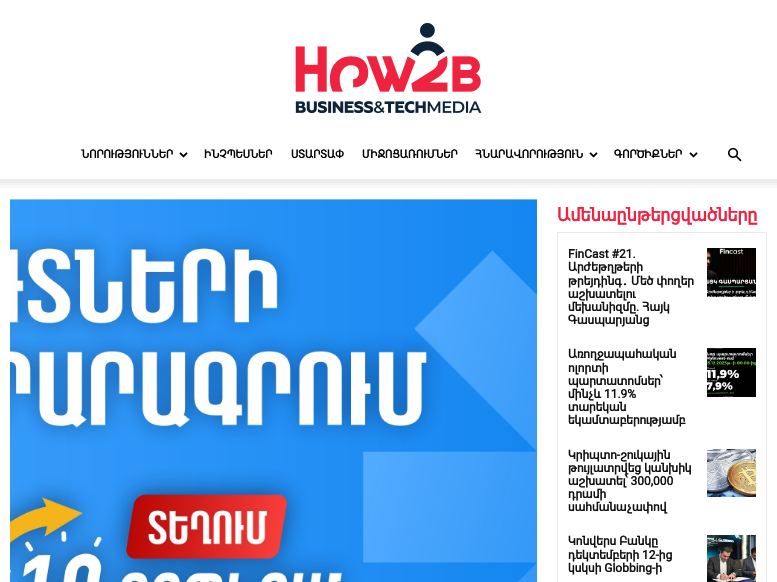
void draw(SkCanvas* canvas) {
	SkPaint paint;
	paint.setAntiAlias(true);
	canvas->clear(0xffffffff);
	canvas->drawImageRect(SkImages::DeferredFromEncodedData(SkData::MakeFromFileName("img1.png")), SkRect::MakeXYWH(295, 23, 187, 90), SkSamplingOptions());
	SkFont f1(fontMgr->matchFamilyStyle("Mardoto", SkFontStyle::Bold()), 11);
	f1.setSubpixel(true);
	paint.setColor(0xff000000);
	canvas->drawString("ՆՈՐՈՒԹՅՈՒՆՆԵՐ", 81, 158, f1, paint);
	canvas->drawImageRect(SkImages::DeferredFromEncodedData(SkData::MakeFromFileName("img2.png")), SkRect::MakeXYWH(179, 152, 9, 6), SkSamplingOptions());
	canvas->drawString("ԻՆՉՊԵՍՆԵՐ", 204, 158, f1, paint);
	canvas->drawString("ՍՏԱՐՏԱՓ", 291, 158, f1, paint);
	canvas->drawString("ՄԻՋՈՑԱՌՈՒՄՆԵՐ", 362, 158, f1, paint);
	canvas->drawString("ՀՆԱՐԱՎՈՐՈՒԹՅՈՒՆ", 475, 158, f1, paint);
	canvas->drawImageRect(SkImages::DeferredFromEncodedData(SkData::MakeFromFileName("img2.png")), SkRect::MakeXYWH(589, 152, 9, 6), SkSamplingOptions());
	canvas->drawString("ԳՈՐԾԻՔՆԵՐ", 614, 158, f1, paint);
	canvas->drawImageRect(SkImages::DeferredFromEncodedData(SkData::MakeFromFileName("img2.png")), SkRect::MakeXYWH(689, 152, 9, 6), SkSamplingOptions());
	canvas->drawImageRect(SkImages::DeferredFromEncodedData(SkData::MakeFromFileName("img3.png")), SkRect::MakeXYWH(728, 147, 14, 15), SkSamplingOptions());
	canvas->drawImageRect(SkImages::DeferredFromEncodedData(SkData::MakeFromFileName("img4.png")), SkRect::MakeXYWH(0, 179, 777, 9), SkSamplingOptions());
	canvas->drawImageRect(SkImages::DeferredFromEncodedData(SkData::MakeFromFileName("img5.png")), SkRect::MakeXYWH(10, 199, 527, 383), SkSamplingOptions());
	SkFont f2(fontMgr->matchFamilyStyle("Mardoto", SkFontStyle::Bold()), 18);
	f2.setSubpixel(true);
	paint.setColor(0xffef223f);
	canvas->drawString("Ամենաընթերցվածները", 557, 221, f2, paint);
	paint.setStroke(true);
	paint.setStrokeWidth(1);
	paint.setColor(0xffeaeaea);
	canvas->drawRect(SkRect::MakeXYWH(557.5, 232.5, 209, 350), paint);
	SkFont f3(fontMgr->matchFamilyStyle("Mardoto", SkFontStyle::Bold()), 12);
	f3.setSubpixel(true);
	paint.setStroke(false);
	paint.setColor(0xff111111);
	canvas->drawString("FinCast #21.", 568, 258, f3, paint);
	canvas->drawString("Արժեթղթերի", 568, 271, f3, paint);
	canvas->drawString("թրեյդինգ", 568, 285, f3, paint);
	SkFont f4(fontMgr->matchFamilyStyle("Noto Sans", SkFontStyle::Bold()), 12);
	f4.setSubpixel(true);
	canvas->drawString("․", 622, 285, f4, paint);
	canvas->drawString("Մեծ փողեր", 631, 285, f3, paint);
	canvas->drawString("աշխատելու", 568, 298, f3, paint);
	canvas->drawString("մեխանիզմը. Հայկ", 568, 311, f3, paint);
	canvas->drawString("Գասպարյանց", 568, 324, f3, paint);
	canvas->drawImageRect(SkImages::DeferredFromEncodedData(SkData::MakeFromFileName("img6.png")), SkRect::MakeXYWH(707, 248, 49, 49), SkSamplingOptions());
	canvas->drawString("Առողջապահական", 568, 358, f3, paint);
	canvas->drawString("ոլորտի", 568, 372, f3, paint);
	canvas->drawString("պարտատոմսեր՝", 568, 385, f3, paint);
	canvas->drawString("մինչև 11.9%", 568, 398, f3, paint);
	canvas->drawString("տարեկան", 568, 411, f3, paint);
	canvas->drawString("եկամտաբերությամբ", 568, 424, f3, paint);
	canvas->drawImageRect(SkImages::DeferredFromEncodedData(SkData::MakeFromFileName("img7.png")), SkRect::MakeXYWH(707, 348, 49, 49), SkSamplingOptions());
	canvas->drawString("Կրիպտո-շուկային", 568, 459, f3, paint);
	canvas->drawString("թույլատրվեց կանխիկ", 568, 472, f3, paint);
	canvas->drawString("աշխատել՝ 300,000", 568, 485, f3, paint);
	canvas->drawString("դրամի", 568, 498, f3, paint);
	canvas->drawString("սահմանաչափով", 568, 511, f3, paint);
	canvas->drawImageRect(SkImages::DeferredFromEncodedData(SkData::MakeFromFileName("img8.png")), SkRect::MakeXYWH(707, 449, 49, 48), SkSamplingOptions());
	canvas->drawString("Կոնվերս Բանկը", 568, 545, f3, paint);
	canvas->drawString("դեկտեմբերի 12-ից", 568, 559, f3, paint);
	canvas->drawString("կսկսի Globbing-ի", 568, 572, f3, paint);
	canvas->drawImageRect(SkImages::DeferredFromEncodedData(SkData::MakeFromFileName("img9.png")), SkRect::MakeXYWH(707, 535, 49, 47), SkSamplingOptions());
}
